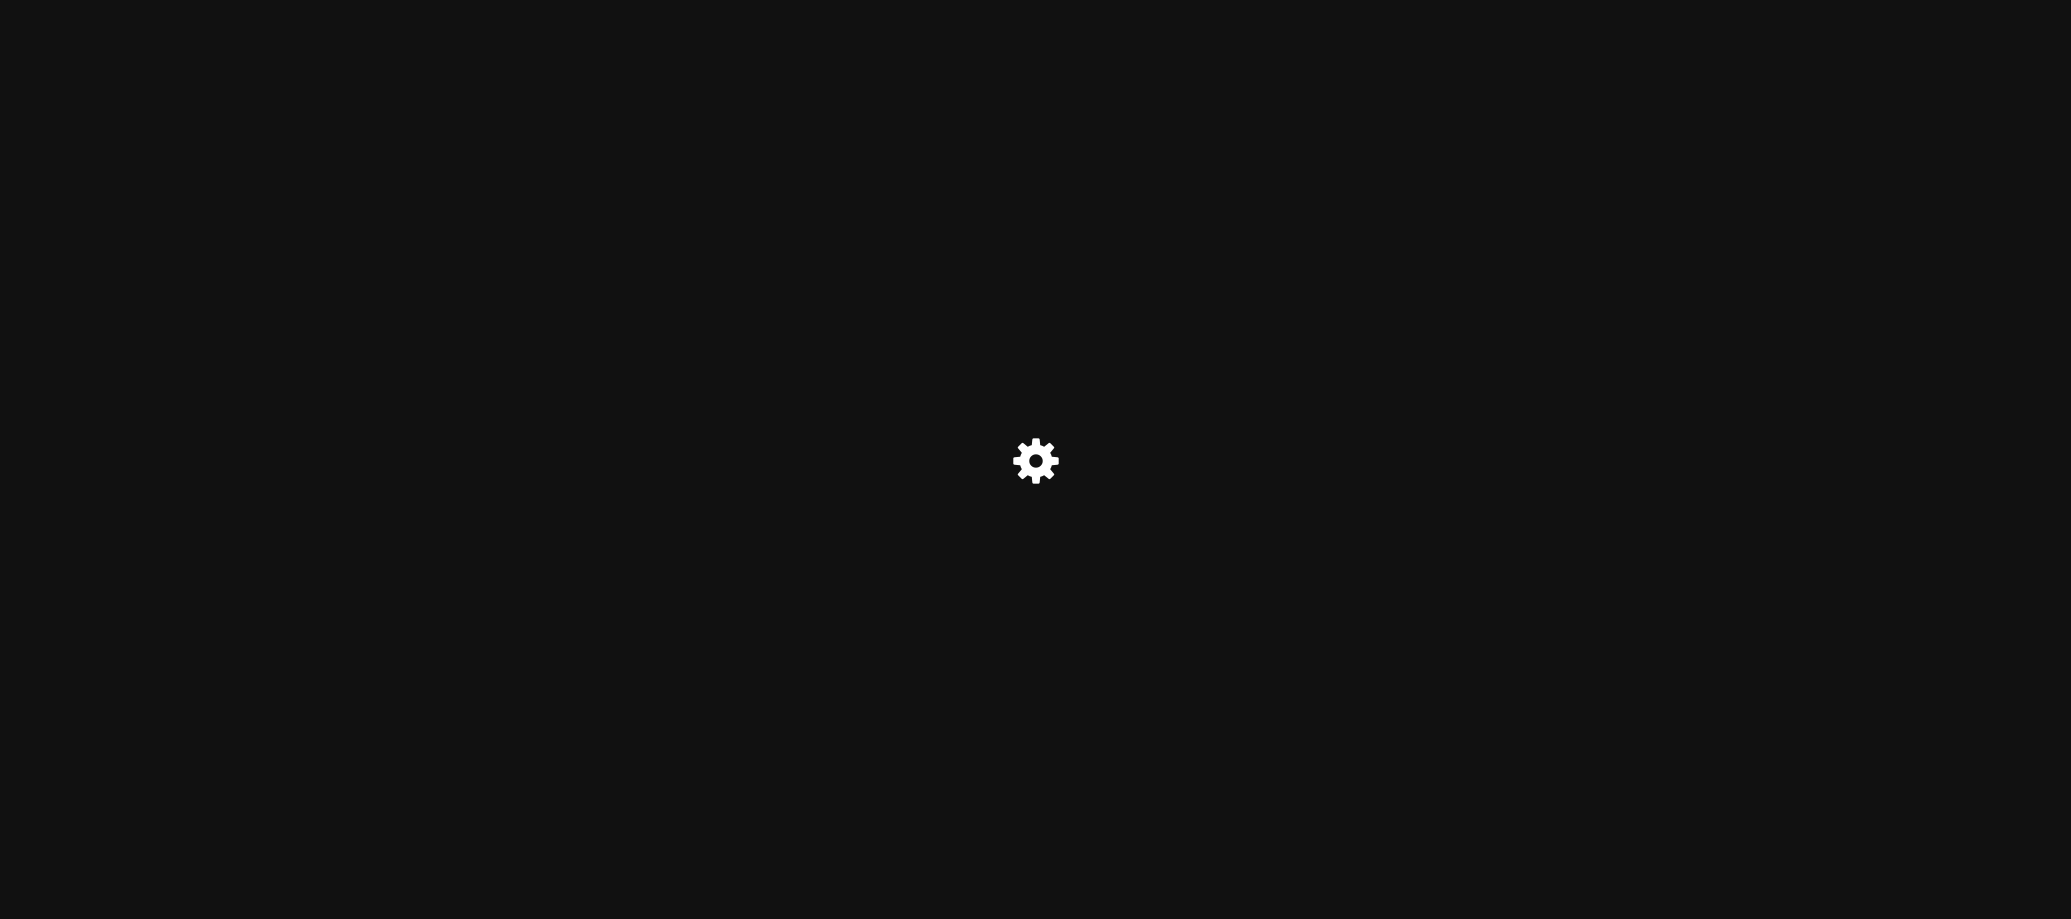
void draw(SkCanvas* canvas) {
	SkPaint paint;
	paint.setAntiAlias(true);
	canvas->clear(0xff111111);
	canvas->drawImageRect(SkImages::DeferredFromEncodedData(SkData::MakeFromFileName("img1.png")), SkRect::MakeXYWH(1013, 438, 46, 46), SkSamplingOptions());
}
